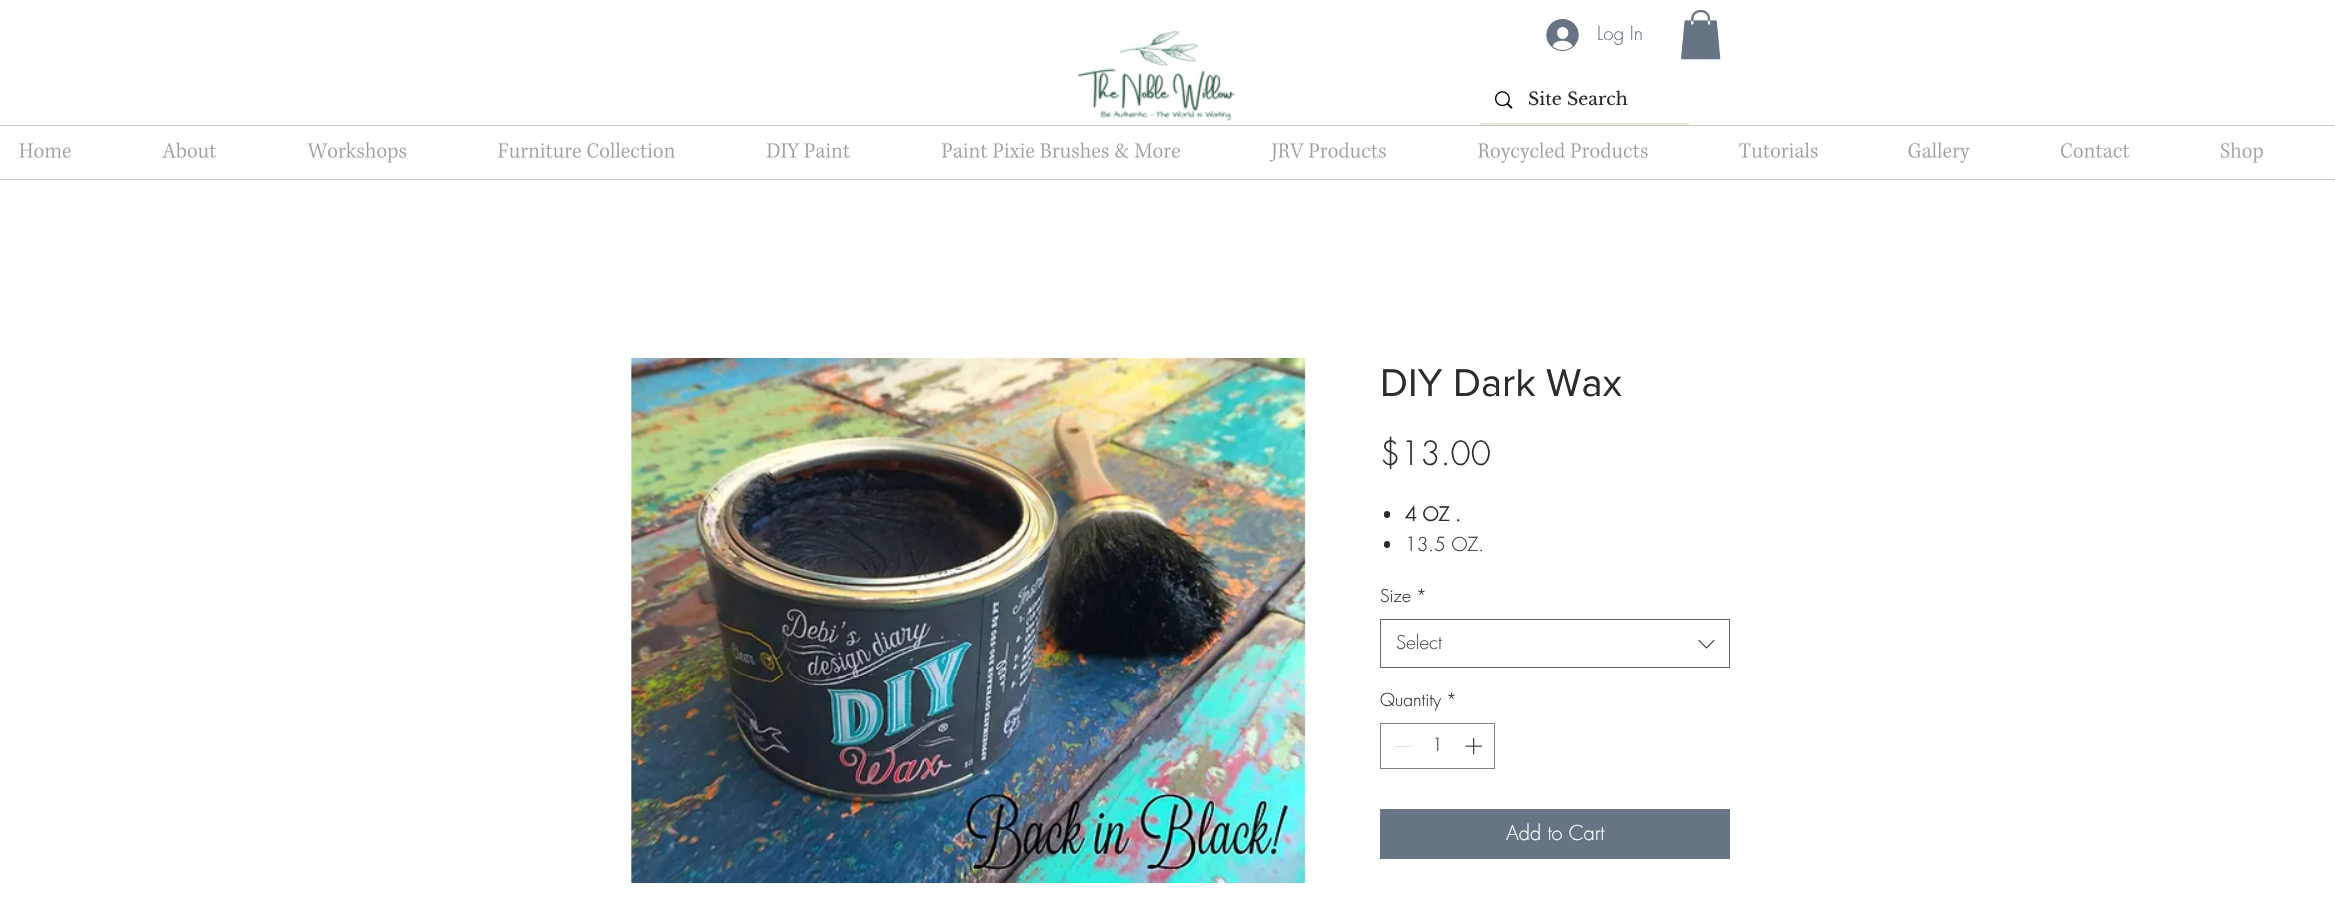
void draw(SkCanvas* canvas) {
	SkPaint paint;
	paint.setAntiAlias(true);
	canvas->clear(0xffffffff);
	canvas->drawImageRect(SkImages::DeferredFromEncodedData(SkData::MakeFromFileName("img1.png")), SkRect::MakeXYWH(1077, 31, 159, 91), SkSamplingOptions());
	canvas->drawImageRect(SkImages::DeferredFromEncodedData(SkData::MakeFromFileName("img2.png")), SkRect::MakeXYWH(1546, 19, 33, 32), SkSamplingOptions());
	SkFont f1(fontMgr->matchFamilyStyle("futura", SkFontStyle(300, SkFontStyle::kNormal_Width, SkFontStyle::kUpright_Slant)), 18.75);
	f1.setSubpixel(true);
	paint.setColor(0xff677483);
	canvas->drawString("Log In", 1597, 40, f1, paint);
	canvas->drawImageRect(SkImages::DeferredFromEncodedData(SkData::MakeFromFileName("img3.png")), SkRect::MakeXYWH(1681, 10, 40, 50), SkSamplingOptions());
	paint.setColor(0xffebe5d6);
	canvas->drawRect(SkRect::MakeXYWH(1480, 123, 209, 2), paint);
	canvas->drawImageRect(SkImages::DeferredFromEncodedData(SkData::MakeFromFileName("img4.png")), SkRect::MakeXYWH(1495, 91, 18, 18), SkSamplingOptions());
	SkFont f2(fontMgr->matchFamilyStyle("Libre Baskerville", SkFontStyle::Normal()), 17.5);
	f2.setSubpixel(true);
	paint.setColor(0xff2c2c2b);
	canvas->drawString("Site Search", 1528, 105, f2, paint);
	paint.setColor(0xffcacaca);
	canvas->drawRect(SkRect::MakeXYWH(0, 125, 2335, 1), paint);
	canvas->drawRect(SkRect::MakeXYWH(0, 179, 2335, 1), paint);
	canvas->drawImageRect(SkImages::DeferredFromEncodedData(SkData::MakeFromFileName("img5.png")), SkRect::MakeXYWH(19, 143, 52, 15), SkSamplingOptions());
	canvas->drawImageRect(SkImages::DeferredFromEncodedData(SkData::MakeFromFileName("img6.png")), SkRect::MakeXYWH(162, 142, 55, 16), SkSamplingOptions());
	canvas->drawImageRect(SkImages::DeferredFromEncodedData(SkData::MakeFromFileName("img7.png")), SkRect::MakeXYWH(307, 142, 100, 21), SkSamplingOptions());
	canvas->drawImageRect(SkImages::DeferredFromEncodedData(SkData::MakeFromFileName("img8.png")), SkRect::MakeXYWH(498, 142, 177, 16), SkSamplingOptions());
	canvas->drawImageRect(SkImages::DeferredFromEncodedData(SkData::MakeFromFileName("img9.png")), SkRect::MakeXYWH(766, 143, 84, 15), SkSamplingOptions());
	canvas->drawImageRect(SkImages::DeferredFromEncodedData(SkData::MakeFromFileName("img10.png")), SkRect::MakeXYWH(941, 142, 239, 16), SkSamplingOptions());
	canvas->drawImageRect(SkImages::DeferredFromEncodedData(SkData::MakeFromFileName("img11.png")), SkRect::MakeXYWH(1269, 142, 117, 20), SkSamplingOptions());
	canvas->drawImageRect(SkImages::DeferredFromEncodedData(SkData::MakeFromFileName("img12.png")), SkRect::MakeXYWH(1478, 142, 170, 21), SkSamplingOptions());
	canvas->drawImageRect(SkImages::DeferredFromEncodedData(SkData::MakeFromFileName("img13.png")), SkRect::MakeXYWH(1739, 142, 79, 16), SkSamplingOptions());
	canvas->drawImageRect(SkImages::DeferredFromEncodedData(SkData::MakeFromFileName("img14.png")), SkRect::MakeXYWH(1908, 142, 62, 21), SkSamplingOptions());
	canvas->drawImageRect(SkImages::DeferredFromEncodedData(SkData::MakeFromFileName("img15.png")), SkRect::MakeXYWH(2061, 143, 69, 15), SkSamplingOptions());
	canvas->drawImageRect(SkImages::DeferredFromEncodedData(SkData::MakeFromFileName("img16.png")), SkRect::MakeXYWH(2221, 142, 42, 21), SkSamplingOptions());
	canvas->drawImageRect(SkImages::DeferredFromEncodedData(SkData::MakeFromFileName("img17.png")), SkRect::MakeXYWH(631, 358, 675, 525), SkSamplingOptions());
	SkFont f3(fontMgr->matchFamilyStyle("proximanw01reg", SkFontStyle::Normal()), 40);
	f3.setSubpixel(true);
	paint.setColor(0xff2c2c2b);
	canvas->drawString("DIY Dark Wax", 1380, 396, f3, paint);
	SkFont f4(fontMgr->matchFamilyStyle("futura", SkFontStyle(300, SkFontStyle::kNormal_Width, SkFontStyle::kUpright_Slant)), 32.5);
	f4.setSubpixel(true);
	canvas->drawString("$13.00", 1380, 465, f4, paint);
	canvas->drawRoundRect(SkRect::MakeXYWH(1384, 511, 6, 7), 3, 3, paint);
	SkFont f5(fontMgr->matchFamilyStyle("futura", SkFontStyle::Bold()), 18.75);
	f5.setSubpixel(true);
	canvas->drawString("4 OZ .", 1405, 521, f5, paint);
	canvas->drawRoundRect(SkRect::MakeXYWH(1384, 541, 6, 7), 3, 3, paint);
	canvas->drawString("13.5 OZ.", 1405, 551, f1, paint);
	SkFont f6(fontMgr->matchFamilyStyle("futura", SkFontStyle(300, SkFontStyle::kNormal_Width, SkFontStyle::kUpright_Slant)), 17.5);
	f6.setSubpixel(true);
	canvas->drawString("Size", 1380, 602, f6, paint);
	canvas->drawString("*", 1416, 602, f6, paint);
	paint.setStroke(true);
	paint.setStrokeWidth(1);
	paint.setColor(0xff666666);
	canvas->drawRect(SkRect::MakeXYWH(1380.5, 619.5, 349, 48), paint);
	paint.setStroke(false);
	paint.setColor(0xff444444);
	canvas->drawString("Select", 1396, 649, f1, paint);
	canvas->drawImageRect(SkImages::DeferredFromEncodedData(SkData::MakeFromFileName("img18.png")), SkRect::MakeXYWH(1698, 639, 17, 10), SkSamplingOptions());
	paint.setColor(0xff2c2c2b);
	canvas->drawString("Quantity", 1380, 706, f6, paint);
	canvas->drawString("*", 1446, 706, f6, paint);
	paint.setStroke(true);
	paint.setColor(0xff808080);
	canvas->drawRect(SkRect::MakeXYWH(1380.5, 723.5, 114, 45), paint);
	paint.setStroke(false);
	paint.setColor(0xffe3e3e3);
	canvas->drawRect(SkRect::MakeXYWH(1394, 746, 17, 1), paint);
	paint.setColor(0xff2c2c2b);
	canvas->drawString("1", 1432, 751, f6, paint);
	canvas->drawImageRect(SkImages::DeferredFromEncodedData(SkData::MakeFromFileName("img19.png")), SkRect::MakeXYWH(1465, 737, 17, 18), SkSamplingOptions());
	paint.setColor(0xff677483);
	canvas->drawRect(SkRect::MakeXYWH(1380, 809, 350, 50), paint);
	SkFont f7(fontMgr->matchFamilyStyle("futura", SkFontStyle(300, SkFontStyle::kNormal_Width, SkFontStyle::kUpright_Slant)), 20);
	f7.setSubpixel(true);
	paint.setColor(0xffffffff);
	canvas->drawString("Add to Cart", 1506, 840, f7, paint);
}
